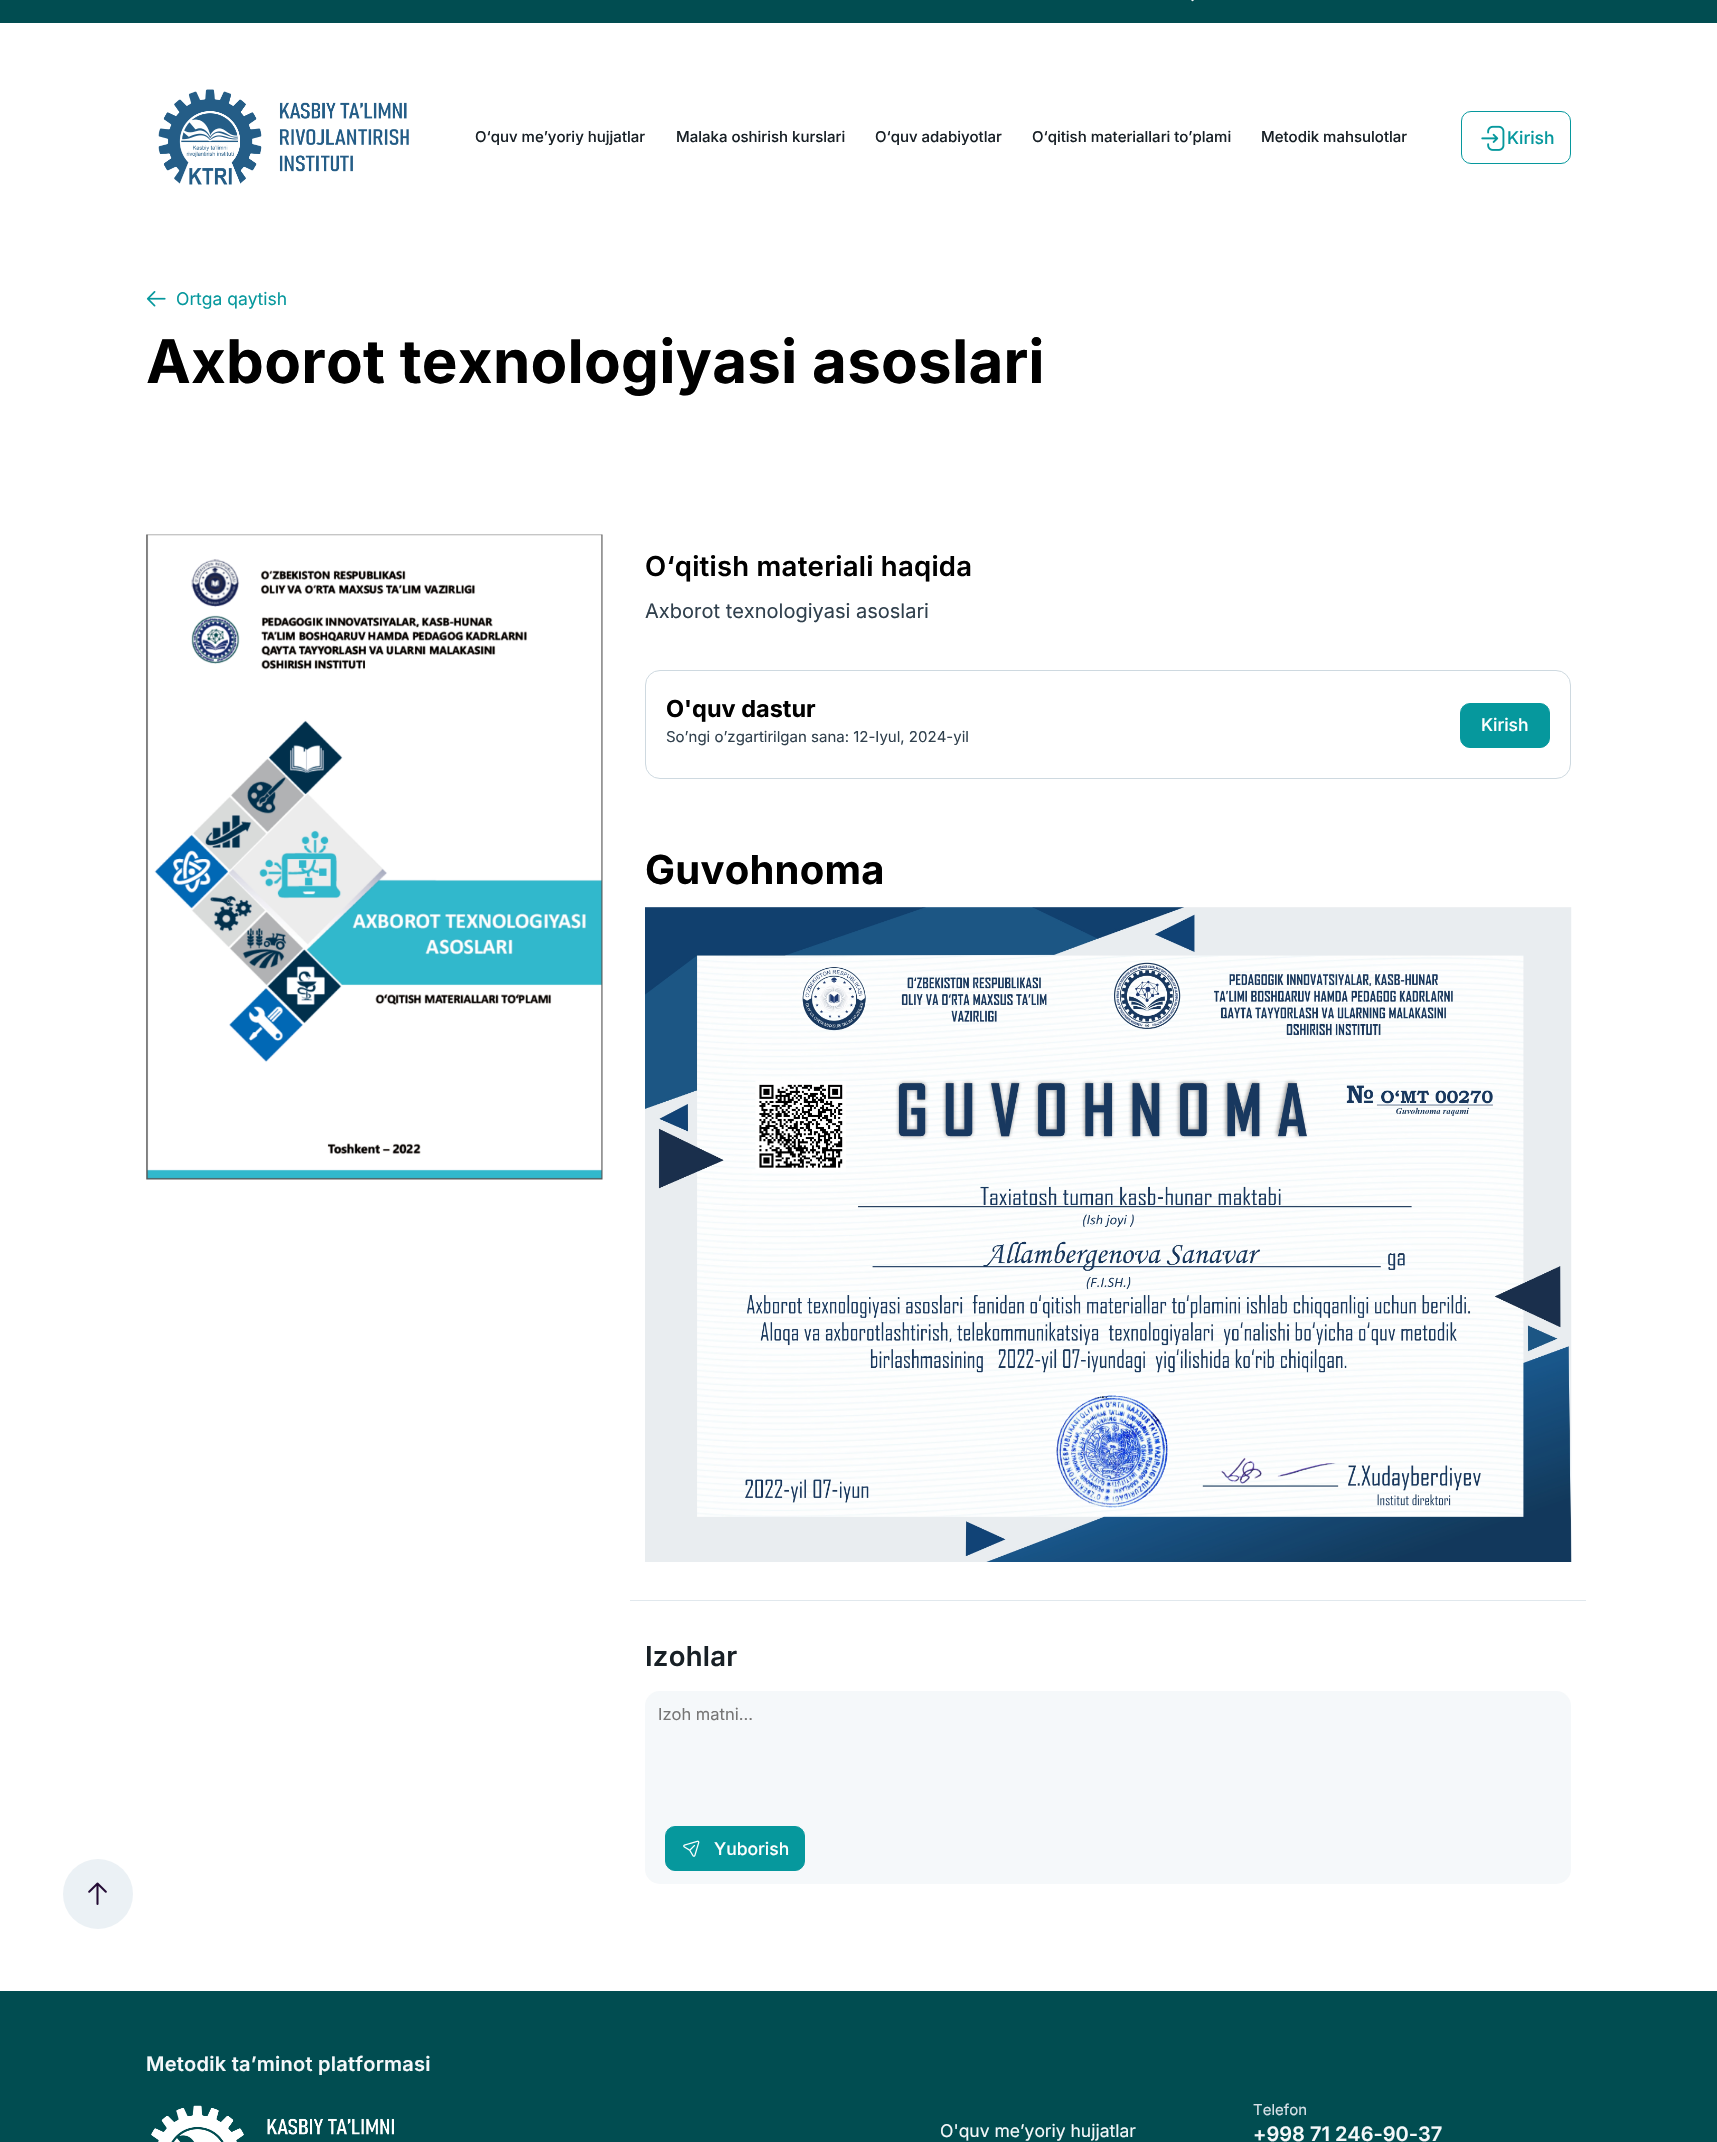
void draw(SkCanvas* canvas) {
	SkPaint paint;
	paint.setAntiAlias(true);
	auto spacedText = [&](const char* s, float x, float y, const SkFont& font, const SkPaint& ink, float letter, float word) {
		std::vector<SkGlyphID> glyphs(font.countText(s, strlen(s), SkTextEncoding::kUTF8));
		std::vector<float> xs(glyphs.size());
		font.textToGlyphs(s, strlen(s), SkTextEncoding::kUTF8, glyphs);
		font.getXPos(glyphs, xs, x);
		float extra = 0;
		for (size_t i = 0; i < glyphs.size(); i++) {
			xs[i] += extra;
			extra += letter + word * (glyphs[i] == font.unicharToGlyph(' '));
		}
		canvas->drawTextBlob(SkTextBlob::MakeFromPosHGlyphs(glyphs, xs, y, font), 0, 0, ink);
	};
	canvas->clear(0xffffffff);
	paint.setColor(0xff014d51);
	canvas->drawRect(SkRect::MakeXYWH(0, 0, 1717, 23), paint);
	canvas->drawImageRect(SkImages::DeferredFromEncodedData(SkData::MakeFromFileName("img1.png")), SkRect::MakeXYWH(1191, 0, 3, 2), SkSamplingOptions());
	canvas->drawImageRect(SkImages::DeferredFromEncodedData(SkData::MakeFromFileName("img2.png")), SkRect::MakeXYWH(158, 89, 251, 96), SkSamplingOptions());
	SkFont f1(fontMgr->matchFamilyStyle("Inter", SkFontStyle(500, SkFontStyle::kNormal_Width, SkFontStyle::kUpright_Slant)), 15);
	f1.setSubpixel(true);
	paint.setColor(0xff182026);
	canvas->drawString("O‘quv me’yoriy hujjatlar", 475, 142, f1, paint);
	canvas->drawString("Malaka oshirish kurslari", 676, 142, f1, paint);
	canvas->drawString("O‘quv adabiyotlar", 875, 142, f1, paint);
	canvas->drawString("O‘qitish materiallari to’plami", 1032, 142, f1, paint);
	canvas->drawString("Metodik mahsulotlar", 1261, 142, f1, paint);
	paint.setStroke(true);
	paint.setStrokeWidth(1);
	paint.setColor(0xff06989d);
	canvas->drawRoundRect(SkRect::MakeXYWH(1461.5, 111.5, 109, 52), 9.5, 9.5, paint);
	canvas->drawImageRect(SkImages::DeferredFromEncodedData(SkData::MakeFromFileName("img3.png")), SkRect::MakeXYWH(1481, 125, 24, 26), SkSamplingOptions());
	SkFont f2(fontMgr->matchFamilyStyle("Inter", SkFontStyle(500, SkFontStyle::kNormal_Width, SkFontStyle::kUpright_Slant)), 17.5);
	f2.setSubpixel(true);
	paint.setStroke(false);
	canvas->drawString("Kirish", 1507, 144, f2, paint);
	canvas->drawImageRect(SkImages::DeferredFromEncodedData(SkData::MakeFromFileName("img4.png")), SkRect::MakeXYWH(146, 291, 20, 16), SkSamplingOptions());
	SkFont f3(fontMgr->matchFamilyStyle("Inter", SkFontStyle::Normal()), 17.5);
	f3.setSubpixel(true);
	canvas->drawString("Ortga qaytish", 176, 305, f3, paint);
	SkFont f4(fontMgr->matchFamilyStyle("Inter", SkFontStyle::Bold()), 60);
	f4.setSubpixel(true);
	paint.setColor(0xff000000);
	spacedText("Axborot texnologiyasi asoslari", 146, 383, f4, paint, 0.25, 0);
	canvas->drawImageRect(SkImages::DeferredFromEncodedData(SkData::MakeFromFileName("img5.png")), SkRect::MakeXYWH(146, 534, 457, 646), SkSamplingOptions());
	paint.setColor(0xffebf1f5);
	canvas->drawCircle(98, 1894, 35, paint);
	canvas->drawImageRect(SkImages::DeferredFromEncodedData(SkData::MakeFromFileName("img6.png")), SkRect::MakeXYWH(88, 1882, 19, 23), SkSamplingOptions());
	paint.setColor(0xffe1e8ed);
	canvas->drawRect(SkRect::MakeXYWH(630, 1600, 956, 1), paint);
	SkFont f5(fontMgr->matchFamilyStyle("Inter", SkFontStyle(600, SkFontStyle::kNormal_Width, SkFontStyle::kUpright_Slant)), 27.5);
	f5.setSubpixel(true);
	paint.setColor(0xff000000);
	spacedText("O‘qitish materiali haqida", 645, 576, f5, paint, 0.25, 0);
	SkFont f6(fontMgr->matchFamilyStyle("Inter", SkFontStyle::Normal()), 20);
	f6.setSubpixel(true);
	paint.setColor(0xff30404d);
	canvas->drawString("Axborot texnologiyasi asoslari", 645, 618, f6, paint);
	paint.setStroke(true);
	paint.setColor(0xffced9e0);
	canvas->drawRoundRect(SkRect::MakeXYWH(645.5, 670.5, 925, 108), 14.5, 14.5, paint);
	SkFont f7(fontMgr->matchFamilyStyle("Inter", SkFontStyle::Bold()), 23.5);
	f7.setSubpixel(true);
	paint.setStroke(false);
	paint.setColor(0xff000000);
	canvas->drawString("O'quv dastur", 666, 717, f7, paint);
	SkFont f8(fontMgr->matchFamilyStyle("Inter", SkFontStyle::Normal()), 15);
	f8.setSubpixel(true);
	paint.setColor(0xff30404d);
	canvas->drawString("So’ngi o’zgartirilgan sana: 12-Iyul, 2024-yil", 666, 742, f8, paint);
	paint.setColor(0xff06989d);
	canvas->drawRoundRect(SkRect::MakeXYWH(1460.5, 703.5, 89, 44), 9.5, 9.5, paint);
	paint.setStroke(true);
	canvas->drawRoundRect(SkRect::MakeXYWH(1460.5, 703.5, 89, 44), 9.5, 9.5, paint);
	paint.setStroke(false);
	paint.setColor(0xffffffff);
	canvas->drawString("Kirish", 1481, 731, f2, paint);
	SkFont f9(fontMgr->matchFamilyStyle("Inter", SkFontStyle::Bold()), 40);
	f9.setSubpixel(true);
	paint.setColor(0xff000000);
	spacedText("Guvohnoma", 645, 884, f9, paint, 0.25, 0);
	canvas->drawImageRect(SkImages::DeferredFromEncodedData(SkData::MakeFromFileName("img7.png")), SkRect::MakeXYWH(645, 907, 927, 655), SkSamplingOptions());
	paint.setColor(0xff182026);
	spacedText("Izohlar", 645, 1666, f5, paint, 0.25, 0);
	paint.setColor(0xfff5f8fa);
	canvas->drawRoundRect(SkRect::MakeXYWH(645, 1691, 926, 193), 15, 15, paint);
	SkFont f10(fontMgr->matchFamilyStyle("Inter", SkFontStyle::Normal()), 16.5);
	f10.setSubpixel(true);
	paint.setColor(0xff757575);
	canvas->drawString("Izoh matni...", 658, 1720, f10, paint);
	paint.setColor(0xff06989d);
	canvas->drawRoundRect(SkRect::MakeXYWH(665.5, 1826.5, 139, 44), 9.5, 9.5, paint);
	paint.setStroke(true);
	canvas->drawRoundRect(SkRect::MakeXYWH(665.5, 1826.5, 139, 44), 9.5, 9.5, paint);
	canvas->drawImageRect(SkImages::DeferredFromEncodedData(SkData::MakeFromFileName("img8.png")), SkRect::MakeXYWH(683, 1840, 17, 17), SkSamplingOptions());
	paint.setStroke(false);
	paint.setColor(0xffffffff);
	canvas->drawString("Yuborish", 714, 1855, f2, paint);
	paint.setColor(0xff014d51);
	canvas->drawRect(SkRect::MakeXYWH(0, 1991, 1717, 151), paint);
	SkFont f11(fontMgr->matchFamilyStyle("Inter", SkFontStyle(600, SkFontStyle::kNormal_Width, SkFontStyle::kUpright_Slant)), 20);
	f11.setSubpixel(true);
	paint.setColor(0xfff5f8fa);
	spacedText("Metodik ta’minot platformasi", 146, 2071, f11, paint, 0.25, 0);
	canvas->drawImageRect(SkImages::DeferredFromEncodedData(SkData::MakeFromFileName("img9.png")), SkRect::MakeXYWH(151, 2105, 243, 37), SkSamplingOptions());
	canvas->drawString("O'quv me’yoriy hujjatlar", 940, 2137, f3, paint);
	paint.setColor(0xffd8e1e8);
	canvas->drawString("Telefon", 1253, 2115, f8, paint);
	paint.setColor(0xfff5f8fa);
	canvas->drawString("+998 71 246-90-37", 1253, 2141, f11, paint);
}
